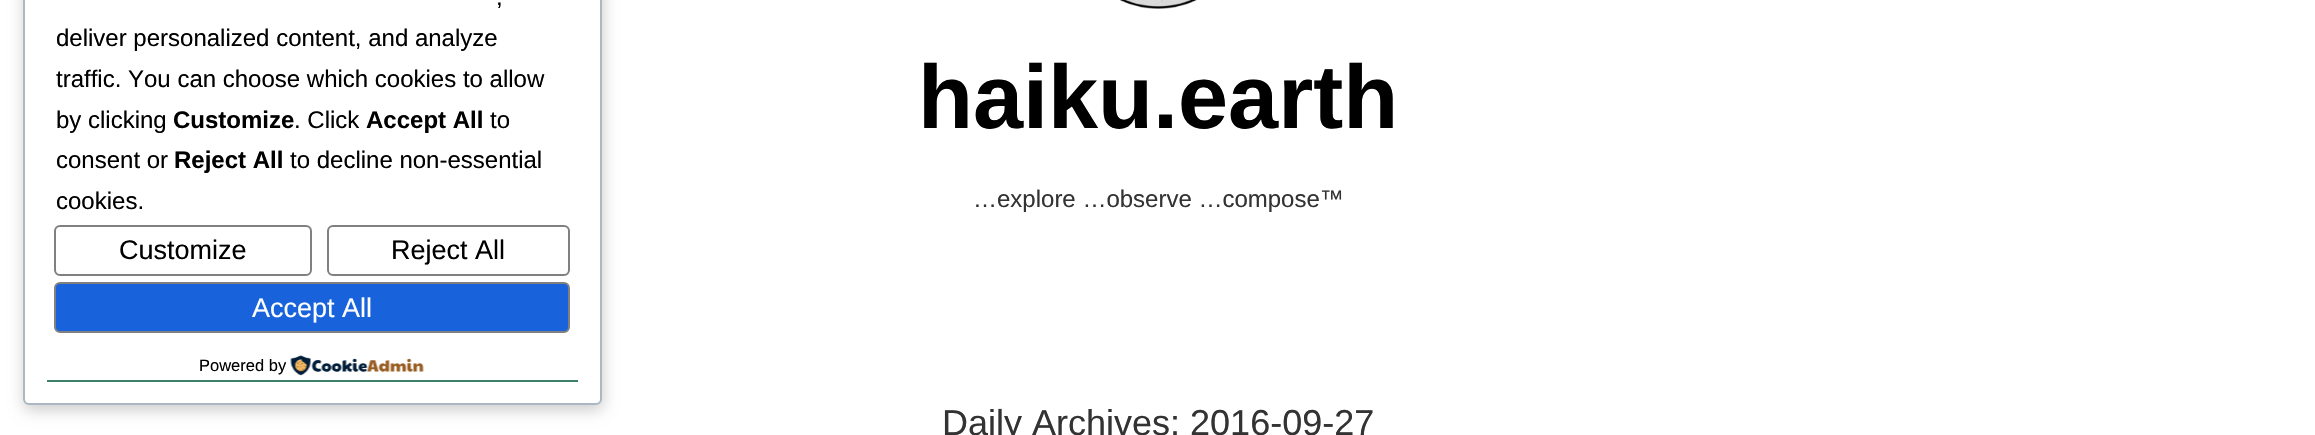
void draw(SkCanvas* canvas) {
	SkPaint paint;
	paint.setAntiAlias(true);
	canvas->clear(0xffffffff);
	paint.setColor(0x33000000);
	paint.setMaskFilter(SkMaskFilter::MakeBlur(kNormal_SkBlurStyle, 7.5));
	canvas->drawRoundRect(SkRect::MakeXYWH(24, -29, 579, 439), 6, 6, paint);
	paint.setMaskFilter(nullptr);
	paint.setColor(0xffffffff);
	canvas->drawRoundRect(SkRect::MakeXYWH(24, -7, 577, 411), 5, 5, paint);
	paint.setStroke(true);
	paint.setStrokeWidth(2);
	paint.setColor(0xffabb8c3);
	canvas->drawRoundRect(SkRect::MakeXYWH(24, -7, 577, 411), 5, 5, paint);
	SkFont f1(fontMgr->matchFamilyStyle("Liberation Sans", SkFontStyle::Normal()), 24);
	f1.setSubpixel(true);
	paint.setStroke(false);
	paint.setColor(0xff000000);
	canvas->drawString(",", 496, 5, f1, paint);
	canvas->drawString("deliver personalized content, and analyze", 56, 46, f1, paint);
	canvas->drawString("traffic. You can choose which cookies to allow", 56, 87, f1, paint);
	canvas->drawString("by clicking", 56, 128, f1, paint);
	SkFont f2(fontMgr->matchFamilyStyle("Liberation Sans", SkFontStyle::Bold()), 24);
	f2.setSubpixel(true);
	canvas->drawString("Customize", 173, 128, f2, paint);
	canvas->drawString(". Click", 294, 128, f1, paint);
	canvas->drawString("Accept All", 366, 128, f2, paint);
	canvas->drawString("to", 490, 128, f1, paint);
	canvas->drawString("consent or", 56, 168, f1, paint);
	canvas->drawString("Reject All", 174, 168, f2, paint);
	canvas->drawString("to decline non-essential", 290, 168, f1, paint);
	canvas->drawString("cookies.", 56, 209, f1, paint);
	paint.setStroke(true);
	paint.setColor(0xff808080);
	canvas->drawRoundRect(SkRect::MakeXYWH(55, 226, 256, 49), 5, 5, paint);
	SkFont f3(fontMgr->matchFamilyStyle("Liberation Sans", SkFontStyle::Normal()), 27);
	f3.setSubpixel(true);
	paint.setStroke(false);
	paint.setColor(0xff000000);
	canvas->drawString("Customize", 119, 259, f3, paint);
	paint.setStroke(true);
	paint.setColor(0xff808080);
	canvas->drawRoundRect(SkRect::MakeXYWH(328, 226, 241, 49), 5, 5, paint);
	paint.setStroke(false);
	paint.setColor(0xff000000);
	canvas->drawString("Reject All", 391, 259, f3, paint);
	paint.setColor(0xff1863dc);
	canvas->drawRoundRect(SkRect::MakeXYWH(55, 283, 514, 49), 5, 5, paint);
	paint.setStroke(true);
	paint.setColor(0xff808080);
	canvas->drawRoundRect(SkRect::MakeXYWH(55, 283, 514, 49), 5, 5, paint);
	paint.setStroke(false);
	paint.setColor(0xffffffff);
	canvas->drawString("Accept All", 252, 317, f3, paint);
	paint.setColor(0xff3c8067);
	canvas->drawRect(SkRect::MakeXYWH(47, 380, 531, 2), paint);
	SkFont f4(fontMgr->matchFamilyStyle("Liberation Sans", SkFontStyle::Normal()), 16.5);
	f4.setSubpixel(true);
	paint.setColor(0xff000000);
	canvas->drawString("Powered by", 199, 371, f4, paint);
	canvas->drawImageRect(SkImages::DeferredFromEncodedData(SkData::MakeFromFileName("img1.png")), SkRect::MakeXYWH(290, 355, 134, 21), SkSamplingOptions());
	canvas->drawImageRect(SkImages::DeferredFromEncodedData(SkData::MakeFromFileName("img2.png")), SkRect::MakeXYWH(1120, 0, 77, 9), SkSamplingOptions());
	SkFont f5(fontMgr->matchFamilyStyle("Liberation Sans", SkFontStyle::Bold()), 90);
	f5.setSubpixel(true);
	canvas->drawString("haiku.earth", 918, 128, f5, paint);
	paint.setColor(0xff333333);
	canvas->drawString("…explore …observe …compose™", 973, 207, f1, paint);
	SkFont f6(fontMgr->matchFamilyStyle("Liberation Sans", SkFontStyle::Normal()), 36);
	f6.setSubpixel(true);
	canvas->drawString("Daily Archives: 2016-09-27", 942, 435, f6, paint);
}
